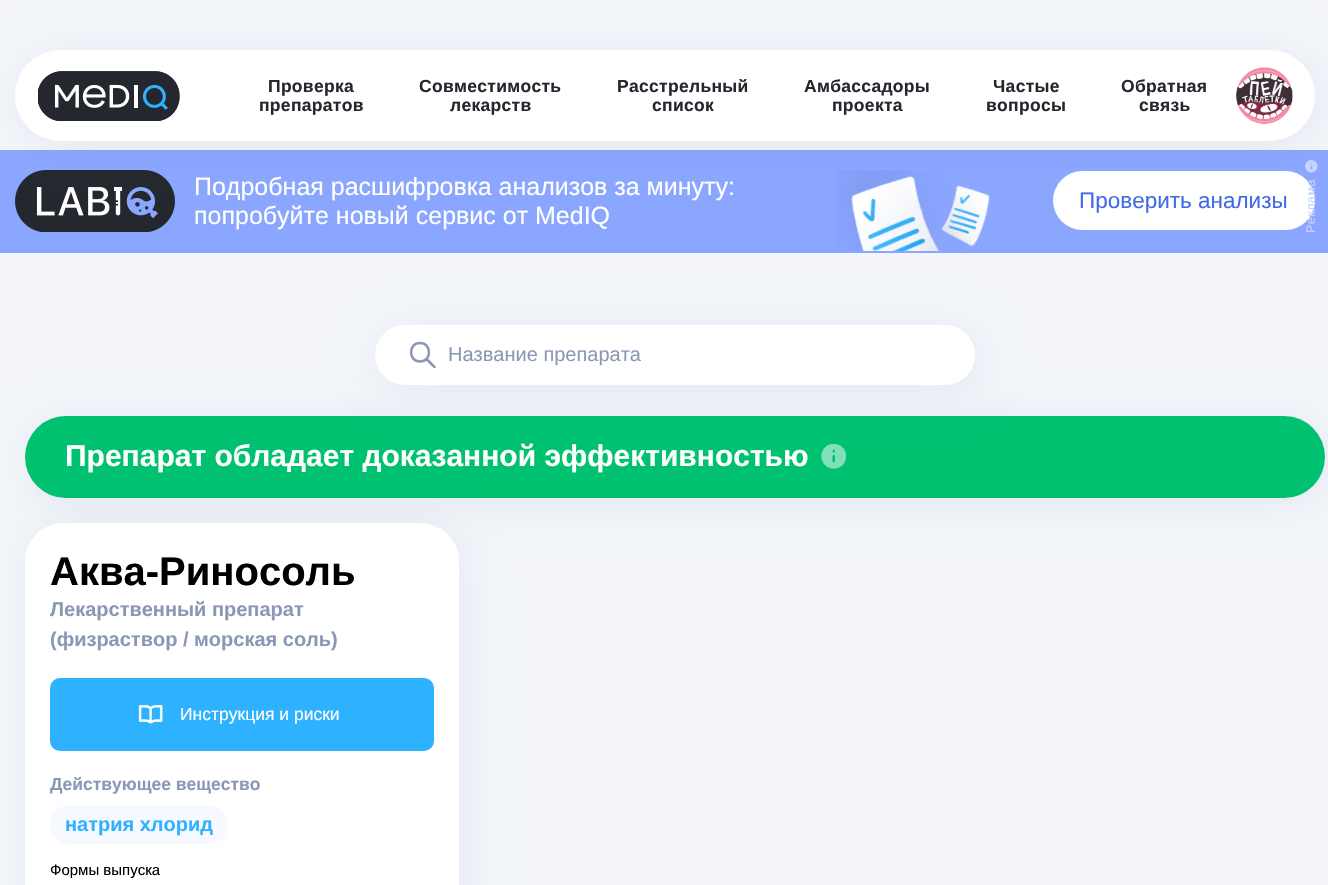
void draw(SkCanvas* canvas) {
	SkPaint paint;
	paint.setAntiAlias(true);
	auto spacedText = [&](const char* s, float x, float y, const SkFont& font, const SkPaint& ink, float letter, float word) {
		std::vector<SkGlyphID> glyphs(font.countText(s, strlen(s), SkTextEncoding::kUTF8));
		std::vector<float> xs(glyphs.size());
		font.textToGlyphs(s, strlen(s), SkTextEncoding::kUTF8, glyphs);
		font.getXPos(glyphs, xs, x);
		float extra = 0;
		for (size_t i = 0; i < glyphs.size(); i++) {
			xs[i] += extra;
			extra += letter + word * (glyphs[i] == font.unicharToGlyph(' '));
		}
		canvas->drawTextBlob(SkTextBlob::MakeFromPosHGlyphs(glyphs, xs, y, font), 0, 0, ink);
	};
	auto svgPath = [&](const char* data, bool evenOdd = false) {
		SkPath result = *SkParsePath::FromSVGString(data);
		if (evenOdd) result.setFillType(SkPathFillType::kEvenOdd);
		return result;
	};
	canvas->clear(0xfff3f5fa);
	paint.setColor(0xff8ba6ff);
	canvas->drawRect(SkRect::MakeXYWH(0, 150, 1328, 103), paint);
	canvas->drawImageRect(SkImages::DeferredFromEncodedData(SkData::MakeFromFileName("img3.png")), SkRect::MakeXYWH(15, 170, 160, 62), SkSamplingOptions());
	canvas->drawImageRect(SkImages::DeferredFromEncodedData(SkData::MakeFromFileName("img4.png")), SkRect::MakeXYWH(835, 170, 155, 81), SkSamplingOptions());
	paint.setColor(0xffffffff);
	canvas->drawRoundRect(SkRect::MakeXYWH(1053, 171, 262, 59), 29.5, 29.5, paint);
	canvas->drawImageRect(SkImages::DeferredFromEncodedData(SkData::MakeFromFileName("img5.png")), SkRect::MakeXYWH(1305, 160, 13, 13), SkSamplingOptions());
	paint.setColor(0x0f00274b);
	paint.setMaskFilter(SkMaskFilter::MakeBlur(kNormal_SkBlurStyle, 20.5));
	canvas->drawRoundRect(SkRect::MakeXYWH(19, 55, 1300, 91), 45.5, 45.5, paint);
	paint.setMaskFilter(nullptr);
	paint.setColor(0xffffffff);
	canvas->drawRoundRect(SkRect::MakeXYWH(15, 50, 1300, 91), 45.5, 45.5, paint);
	canvas->drawImageRect(SkImages::DeferredFromEncodedData(SkData::MakeFromFileName("img1.png")), SkRect::MakeXYWH(38, 71, 142, 50), SkSamplingOptions());
	SkFont f1(fontMgr->matchFamilyStyle("Liberation Sans", SkFontStyle::Bold()), 17.5);
	f1.setSubpixel(true);
	paint.setColor(0xff24272e);
	spacedText("Проверка", 268, 92, f1, paint, 0.3, 0);
	spacedText("препаратов", 259, 111, f1, paint, 0.3, 0);
	spacedText("Совместимость", 419, 92, f1, paint, 0.3, 0);
	spacedText("лекарств", 450, 111, f1, paint, 0.3, 0);
	spacedText("Расстрельный", 617, 92, f1, paint, 0.3, 0);
	spacedText("список", 652, 111, f1, paint, 0.3, 0);
	spacedText("Амбассадоры", 804, 92, f1, paint, 0.3, 0);
	spacedText("проекта", 832, 111, f1, paint, 0.3, 0);
	spacedText("Частые", 993, 92, f1, paint, 0.3, 0);
	spacedText("вопросы", 986, 111, f1, paint, 0.3, 0);
	spacedText("Обратная", 1121, 92, f1, paint, 0.3, 0);
	spacedText("связь", 1139, 111, f1, paint, 0.3, 0);
	canvas->drawImageRect(SkImages::DeferredFromEncodedData(SkData::MakeFromFileName("img2.png")), SkRect::MakeXYWH(1236, 67, 57, 57), SkSamplingOptions());
	SkFont f2(fontMgr->matchFamilyStyle("Liberation Sans", SkFontStyle::Normal()), 25);
	f2.setSubpixel(true);
	paint.setColor(0xffffffff);
	canvas->drawString("Подробная расшифровка анализов за минуту:", 194, 195, f2, paint);
	canvas->drawString("попробуйте новый сервис от MedIQ", 194, 224, f2, paint);
	SkFont f3(fontMgr->matchFamilyStyle("Liberation Sans", SkFontStyle::Normal()), 22.5);
	f3.setSubpixel(true);
	paint.setColor(0xff4369e9);
	canvas->drawString("Проверить анализы", 1079, 208, f3, paint);
	SkFont f4(fontMgr->matchFamilyStyle("Liberation Sans", SkFontStyle::Normal()), 12.5);
	f4.setSubpixel(true);
	paint.setColor(0xffc5d3ff);
	canvas->save();
	canvas->rotate(-90, 1315, 233);
	spacedText("Реклама", 1315, 233, f4, paint, 0.5, 0);
	canvas->restore();
	paint.setColor(0x0f00274b);
	paint.setMaskFilter(SkMaskFilter::MakeBlur(kNormal_SkBlurStyle, 20.5));
	canvas->drawRoundRect(SkRect::MakeXYWH(29, 421, 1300, 82), 41, 41, paint);
	paint.setMaskFilter(nullptr);
	paint.setColor(0xff00c170);
	canvas->drawRoundRect(SkRect::MakeXYWH(25, 416, 1300, 82), 41, 41, paint);
	canvas->drawImageRect(SkImages::DeferredFromEncodedData(SkData::MakeFromFileName("img6.png")), SkRect::MakeXYWH(821, 444, 25, 25), SkSamplingOptions());
	paint.setColor(0x0f00274b);
	paint.setMaskFilter(SkMaskFilter::MakeBlur(kNormal_SkBlurStyle, 20.5));
	canvas->drawRoundRect(SkRect::MakeXYWH(379, 330, 600, 60), 30, 30, paint);
	paint.setMaskFilter(nullptr);
	paint.setColor(0xffffffff);
	canvas->drawRoundRect(SkRect::MakeXYWH(375, 325, 600, 60), 30, 30, paint);
	paint.setStroke(true);
	paint.setStrokeWidth(2.5);
	paint.setStrokeCap(SkPaint::kRound_Cap);
	paint.setStrokeJoin(SkPaint::kRound_Join);
	paint.setColor(0xff8b97b5);
	canvas->drawPath(svgPath("M426.5 359L434.5 367M420 361.5C408 361.5 408 343 420 343C432 343 432 361.5 420 361.5Z"), paint);
	SkFont f5(fontMgr->matchFamilyStyle("Liberation Sans", SkFontStyle::Normal()), 20);
	f5.setSubpixel(true);
	paint.setStroke(false);
	canvas->drawString("Название препарата", 448, 361, f5, paint);
	SkFont f6(fontMgr->matchFamilyStyle("Liberation Sans", SkFontStyle::Bold()), 30);
	f6.setSubpixel(true);
	paint.setColor(0xffffffff);
	canvas->drawString("Препарат обладает доказанной эффективностью", 65, 466, f6, paint);
	paint.setColor(0x0f00274b);
	paint.setMaskFilter(SkMaskFilter::MakeBlur(kNormal_SkBlurStyle, 20.5));
	canvas->drawRoundRect(SkRect::MakeXYWH(29, 528, 434, 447), 38, 38, paint);
	paint.setMaskFilter(nullptr);
	paint.setColor(0xffffffff);
	canvas->drawRoundRect(SkRect::MakeXYWH(25, 523, 434, 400), 38, 38, paint);
	SkFont f7(fontMgr->matchFamilyStyle("Liberation Sans", SkFontStyle::Bold()), 40);
	f7.setSubpixel(true);
	paint.setColor(0xff000000);
	canvas->drawString("Аква-Риносоль", 50, 585, f7, paint);
	SkFont f8(fontMgr->matchFamilyStyle("Liberation Sans", SkFontStyle::Bold()), 20);
	f8.setSubpixel(true);
	paint.setColor(0xff8b97b5);
	canvas->drawString("Лекарственный препарат", 50, 616, f8, paint);
	canvas->drawString("(физраствор / морская соль)", 50, 646, f8, paint);
	paint.setColor(0xff2eb2ff);
	canvas->drawRoundRect(SkRect::MakeXYWH(50, 678, 384, 73), 10, 10, paint);
	canvas->drawImageRect(SkImages::DeferredFromEncodedData(SkData::MakeFromFileName("img7.png")), SkRect::MakeXYWH(138, 705, 25, 19), SkSamplingOptions());
	SkFont f9(fontMgr->matchFamilyStyle("Liberation Sans", SkFontStyle::Normal()), 17.5);
	f9.setSubpixel(true);
	paint.setColor(0xffffffff);
	canvas->drawString("Инструкция и риски", 180, 720, f9, paint);
	paint.setColor(0xff8b97b5);
	canvas->drawString("Действующее вещество", 50, 790, f1, paint);
	paint.setColor(0xfff6f9ff);
	canvas->drawRoundRect(SkRect::MakeXYWH(50, 805, 178, 39), 19.5, 19.5, paint);
	paint.setColor(0xff2eb2ff);
	canvas->drawString("натрия хлорид", 65, 831, f8, paint);
	SkFont f10(fontMgr->matchFamilyStyle("Liberation Sans", SkFontStyle::Normal()), 15);
	f10.setSubpixel(true);
	paint.setColor(0xff000000);
	canvas->drawString("Формы выпуска", 50, 875, f10, paint);
}
